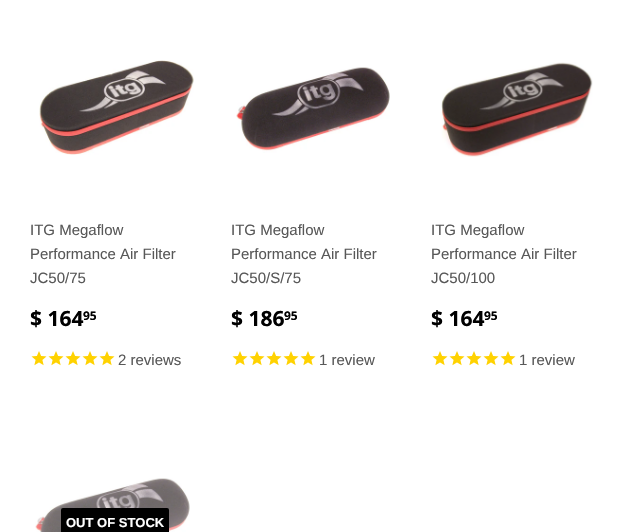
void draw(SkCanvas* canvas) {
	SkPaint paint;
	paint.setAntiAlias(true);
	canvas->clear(0xffffffff);
	canvas->drawImageRect(SkImages::DeferredFromEncodedData(SkData::MakeFromFileName("img1.png")), SkRect::MakeXYWH(39, 60, 155, 95), SkSamplingOptions());
	SkFont f1(fontMgr->matchFamilyStyle("Liberation Sans", SkFontStyle::Normal()), 15);
	f1.setSubpixel(true);
	paint.setColor(0xff585858);
	canvas->drawString("ITG Megaflow", 30, 235, f1, paint);
	canvas->drawString("Performance Air Filter", 30, 259, f1, paint);
	canvas->drawString("JC50/75", 30, 283, f1, paint);
	SkFont f2(fontMgr->matchFamilyStyle("Open Sans", SkFontStyle::Bold()), 21);
	f2.setSubpixel(true);
	paint.setColor(0xff000000);
	canvas->drawString("$ 164", 30, 326, f2, paint);
	SkFont f3(fontMgr->matchFamilyStyle("Open Sans", SkFontStyle::Bold()), 12);
	f3.setSubpixel(true);
	canvas->drawString("95", 83, 320, f3, paint);
	canvas->drawImageRect(SkImages::DeferredFromEncodedData(SkData::MakeFromFileName("img2.png")), SkRect::MakeXYWH(31, 351, 16, 15), SkSamplingOptions());
	canvas->drawImageRect(SkImages::DeferredFromEncodedData(SkData::MakeFromFileName("img2.png")), SkRect::MakeXYWH(48, 351, 16, 15), SkSamplingOptions());
	canvas->drawImageRect(SkImages::DeferredFromEncodedData(SkData::MakeFromFileName("img2.png")), SkRect::MakeXYWH(65, 351, 16, 15), SkSamplingOptions());
	canvas->drawImageRect(SkImages::DeferredFromEncodedData(SkData::MakeFromFileName("img2.png")), SkRect::MakeXYWH(82, 351, 16, 15), SkSamplingOptions());
	canvas->drawImageRect(SkImages::DeferredFromEncodedData(SkData::MakeFromFileName("img2.png")), SkRect::MakeXYWH(99, 351, 16, 15), SkSamplingOptions());
	paint.setColor(0xff585858);
	canvas->drawString("2 reviews", 118, 365, f1, paint);
	canvas->drawImageRect(SkImages::DeferredFromEncodedData(SkData::MakeFromFileName("img3.png")), SkRect::MakeXYWH(236, 67, 154, 86), SkSamplingOptions());
	canvas->drawString("ITG Megaflow", 231, 235, f1, paint);
	canvas->drawString("Performance Air Filter", 231, 259, f1, paint);
	canvas->drawString("JC50/S/75", 231, 283, f1, paint);
	paint.setColor(0xff000000);
	canvas->drawString("$ 186", 231, 326, f2, paint);
	canvas->drawString("95", 284, 320, f3, paint);
	canvas->drawImageRect(SkImages::DeferredFromEncodedData(SkData::MakeFromFileName("img2.png")), SkRect::MakeXYWH(232, 351, 16, 15), SkSamplingOptions());
	canvas->drawImageRect(SkImages::DeferredFromEncodedData(SkData::MakeFromFileName("img2.png")), SkRect::MakeXYWH(249, 351, 16, 15), SkSamplingOptions());
	canvas->drawImageRect(SkImages::DeferredFromEncodedData(SkData::MakeFromFileName("img2.png")), SkRect::MakeXYWH(266, 351, 16, 15), SkSamplingOptions());
	canvas->drawImageRect(SkImages::DeferredFromEncodedData(SkData::MakeFromFileName("img2.png")), SkRect::MakeXYWH(283, 351, 16, 15), SkSamplingOptions());
	canvas->drawImageRect(SkImages::DeferredFromEncodedData(SkData::MakeFromFileName("img2.png")), SkRect::MakeXYWH(300, 351, 16, 15), SkSamplingOptions());
	paint.setColor(0xff585858);
	canvas->drawString("1 review", 319, 365, f1, paint);
	canvas->drawImageRect(SkImages::DeferredFromEncodedData(SkData::MakeFromFileName("img4.png")), SkRect::MakeXYWH(441, 62, 152, 95), SkSamplingOptions());
	canvas->drawString("ITG Megaflow", 431, 235, f1, paint);
	canvas->drawString("Performance Air Filter", 431, 259, f1, paint);
	canvas->drawString("JC50/100", 431, 283, f1, paint);
	paint.setColor(0xff000000);
	canvas->drawString("$ 164", 431, 326, f2, paint);
	canvas->drawString("95", 484, 320, f3, paint);
	canvas->drawImageRect(SkImages::DeferredFromEncodedData(SkData::MakeFromFileName("img2.png")), SkRect::MakeXYWH(432, 351, 16, 15), SkSamplingOptions());
	canvas->drawImageRect(SkImages::DeferredFromEncodedData(SkData::MakeFromFileName("img2.png")), SkRect::MakeXYWH(449, 351, 16, 15), SkSamplingOptions());
	canvas->drawImageRect(SkImages::DeferredFromEncodedData(SkData::MakeFromFileName("img2.png")), SkRect::MakeXYWH(466, 351, 16, 15), SkSamplingOptions());
	canvas->drawImageRect(SkImages::DeferredFromEncodedData(SkData::MakeFromFileName("img2.png")), SkRect::MakeXYWH(483, 351, 16, 15), SkSamplingOptions());
	canvas->drawImageRect(SkImages::DeferredFromEncodedData(SkData::MakeFromFileName("img2.png")), SkRect::MakeXYWH(500, 351, 16, 15), SkSamplingOptions());
	paint.setColor(0xff585858);
	canvas->drawString("1 review", 519, 365, f1, paint);
	canvas->drawImageRect(SkImages::DeferredFromEncodedData(SkData::MakeFromFileName("img5.png")), SkRect::MakeXYWH(35, 478, 155, 54), SkSamplingOptions());
	paint.setColor(0xff000000);
	canvas->drawRoundRect(SkRect::MakeXYWH(61, 508, 108, 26), 2, 2, paint);
	SkFont f4(fontMgr->matchFamilyStyle("Liberation Sans", SkFontStyle::Bold()), 13);
	f4.setSubpixel(true);
	paint.setColor(0xffffffff);
	canvas->drawString("OUT OF STOCK", 66, 527, f4, paint);
}
